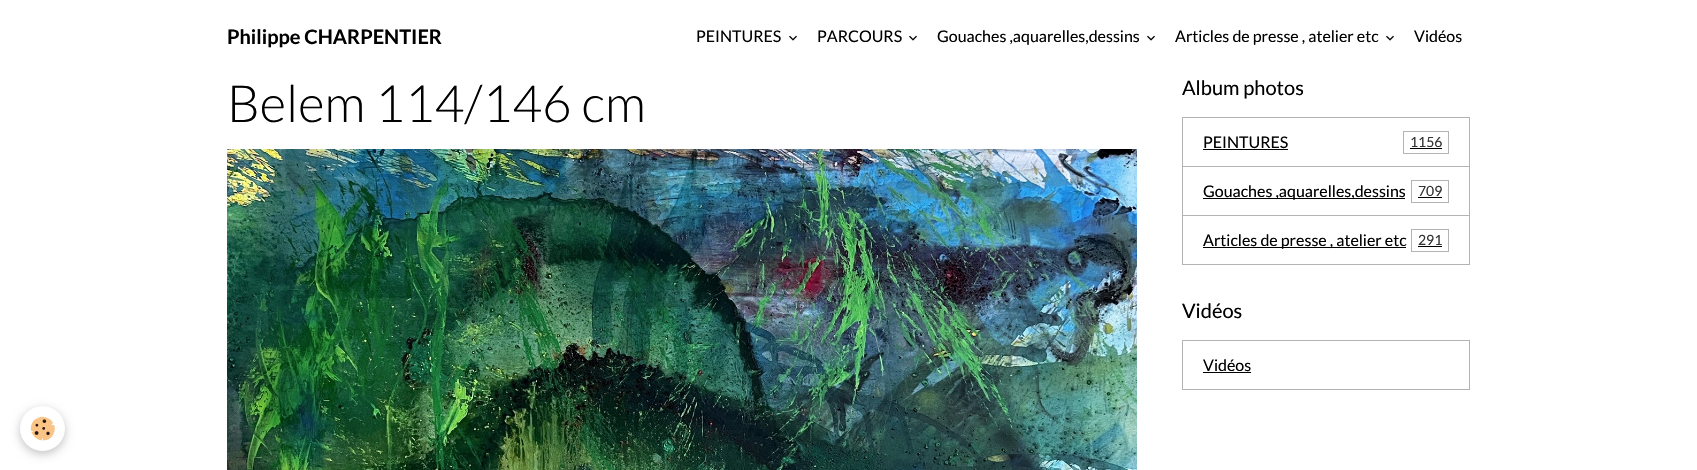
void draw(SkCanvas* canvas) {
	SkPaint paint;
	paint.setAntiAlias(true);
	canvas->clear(0xffffffff);
	SkFont f1(fontMgr->matchFamilyStyle("Lato", SkFontStyle::Bold()), 20);
	f1.setSubpixel(true);
	paint.setColor(0xff000000);
	canvas->drawString("Philippe CHARPENTIER", 227, 44, f1, paint);
	SkFont f2(fontMgr->matchFamilyStyle("Lato", SkFontStyle::Normal()), 16);
	f2.setSubpixel(true);
	canvas->drawString("PEINTURES", 696, 42, f2, paint);
	canvas->drawImageRect(SkImages::DeferredFromEncodedData(SkData::MakeFromFileName("img1.png")), SkRect::MakeXYWH(789, 35, 8, 6), SkSamplingOptions());
	canvas->drawString("PARCOURS", 817, 42, f2, paint);
	canvas->drawImageRect(SkImages::DeferredFromEncodedData(SkData::MakeFromFileName("img1.png")), SkRect::MakeXYWH(909, 35, 8, 6), SkSamplingOptions());
	canvas->drawString("Gouaches ,aquarelles,dessins", 937, 42, f2, paint);
	canvas->drawImageRect(SkImages::DeferredFromEncodedData(SkData::MakeFromFileName("img1.png")), SkRect::MakeXYWH(1147, 35, 8, 6), SkSamplingOptions());
	canvas->drawString("Articles de presse , atelier etc", 1175, 42, f2, paint);
	canvas->drawImageRect(SkImages::DeferredFromEncodedData(SkData::MakeFromFileName("img1.png")), SkRect::MakeXYWH(1386, 35, 8, 6), SkSamplingOptions());
	canvas->drawString("Vidéos", 1414, 42, f2, paint);
	SkFont f3(fontMgr->matchFamilyStyle("Lato", SkFontStyle(300, SkFontStyle::kNormal_Width, SkFontStyle::kUpright_Slant)), 51.25);
	f3.setSubpixel(true);
	canvas->drawString("Belem 114/146 cm", 227, 122, f3, paint);
	canvas->drawImageRect(SkImages::DeferredFromEncodedData(SkData::MakeFromFileName("img2.png")), SkRect::MakeXYWH(227, 149, 910, 321), SkSamplingOptions());
	SkFont f4(fontMgr->matchFamilyStyle("Lato", SkFontStyle::Normal()), 20);
	f4.setSubpixel(true);
	canvas->drawString("Album photos", 1182, 95, f4, paint);
	paint.setStroke(true);
	paint.setStrokeWidth(1);
	paint.setColor(0xffb3b3b3);
	canvas->drawRect(SkRect::MakeXYWH(1182.5, 117.5, 287, 49), paint);
	paint.setStroke(false);
	paint.setColor(0xff000000);
	canvas->drawString("PEINTURES", 1203, 148, f2, paint);
	canvas->drawRect(SkRect::MakeXYWH(1203, 149, 85, 1), paint);
	paint.setStroke(true);
	paint.setColor(0xffb3b3b3);
	canvas->drawRect(SkRect::MakeXYWH(1403.5, 131.5, 45, 22), paint);
	SkFont f5(fontMgr->matchFamilyStyle("Lato", SkFontStyle::Normal()), 14);
	f5.setSubpixel(true);
	paint.setStroke(false);
	paint.setColor(0xff333333);
	canvas->drawString("1156", 1410, 147, f5, paint);
	paint.setColor(0xff000000);
	canvas->drawRect(SkRect::MakeXYWH(1410, 148, 32, 1), paint);
	paint.setStroke(true);
	paint.setColor(0xffb3b3b3);
	canvas->drawRect(SkRect::MakeXYWH(1182.5, 166.5, 287, 49), paint);
	paint.setStroke(false);
	paint.setColor(0xff000000);
	canvas->drawRect(SkRect::MakeXYWH(1203, 198, 202, 1), paint);
	canvas->drawString("Gouaches ,aquarelles,dessins", 1203, 197, f2, paint);
	paint.setStroke(true);
	paint.setColor(0xffb3b3b3);
	canvas->drawRect(SkRect::MakeXYWH(1411.5, 180.5, 37, 22), paint);
	paint.setStroke(false);
	paint.setColor(0xff333333);
	canvas->drawString("709", 1418, 196, f5, paint);
	paint.setColor(0xff000000);
	canvas->drawRect(SkRect::MakeXYWH(1418, 197, 24, 1), paint);
	paint.setStroke(true);
	paint.setColor(0xffb3b3b3);
	canvas->drawRect(SkRect::MakeXYWH(1182.5, 215.5, 287, 49), paint);
	paint.setStroke(false);
	paint.setColor(0xff000000);
	canvas->drawRect(SkRect::MakeXYWH(1203, 247, 203, 1), paint);
	canvas->drawString("Articles de presse , atelier etc", 1203, 246, f2, paint);
	paint.setStroke(true);
	paint.setColor(0xffb3b3b3);
	canvas->drawRect(SkRect::MakeXYWH(1411.5, 229.5, 37, 22), paint);
	paint.setStroke(false);
	paint.setColor(0xff333333);
	canvas->drawString("291", 1418, 245, f5, paint);
	paint.setColor(0xff000000);
	canvas->drawRect(SkRect::MakeXYWH(1418, 246, 24, 1), paint);
	canvas->drawString("Vidéos", 1182, 318, f4, paint);
	paint.setStroke(true);
	paint.setColor(0xffb3b3b3);
	canvas->drawRect(SkRect::MakeXYWH(1182.5, 340.5, 287, 49), paint);
	paint.setStroke(false);
	paint.setColor(0xff000000);
	canvas->drawString("Vidéos", 1203, 371, f2, paint);
	canvas->drawRect(SkRect::MakeXYWH(1203, 372, 48, 1), paint);
	paint.setColor(0x3d000000);
	paint.setMaskFilter(SkMaskFilter::MakeBlur(kNormal_SkBlurStyle, 5));
	canvas->drawRoundRect(SkRect::MakeXYWH(20, 409, 45, 45), 22.5, 22.5, paint);
	paint.setMaskFilter(nullptr);
	paint.setColor(0xffffffff);
	canvas->drawCircle(42.5, 428.5, 22.5, paint);
	canvas->drawImageRect(SkImages::DeferredFromEncodedData(SkData::MakeFromFileName("img3.png")), SkRect::MakeXYWH(30, 416, 25, 25), SkSamplingOptions());
}
